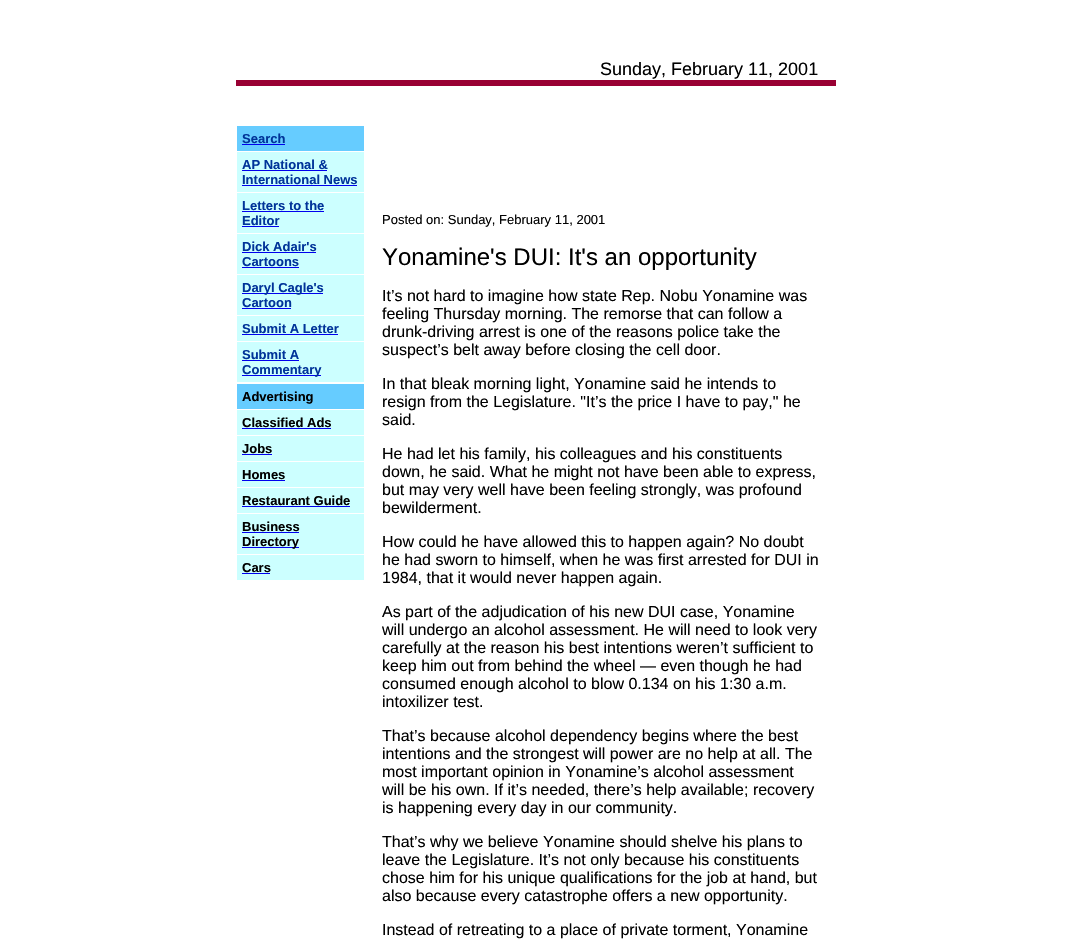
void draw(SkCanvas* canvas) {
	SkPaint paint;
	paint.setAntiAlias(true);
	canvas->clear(0xffffffff);
	SkFont f1(fontMgr->matchFamilyStyle("Liberation Sans", SkFontStyle::Normal()), 18);
	f1.setSubpixel(true);
	paint.setColor(0xff000000);
	canvas->drawString("Sunday, February 11, 2001", 600, 75, f1, paint);
	paint.setColor(0xff990033);
	canvas->drawRect(SkRect::MakeXYWH(236, 80, 600, 6), paint);
	paint.setColor(0xff66ccff);
	canvas->drawRect(SkRect::MakeXYWH(237, 126, 127, 25), paint);
	SkFont f2(fontMgr->matchFamilyStyle("Liberation Sans", SkFontStyle::Bold()), 13);
	f2.setSubpixel(true);
	paint.setColor(0xff003399);
	canvas->drawString("Search", 242, 143, f2, paint);
	paint.setColor(0xff0000ee);
	canvas->drawRect(SkRect::MakeXYWH(242, 144, 43, 1), paint);
	paint.setColor(0xffccffff);
	canvas->drawRect(SkRect::MakeXYWH(237, 152, 127, 40), paint);
	paint.setColor(0xff003399);
	canvas->drawString("AP National &", 242, 169, f2, paint);
	paint.setColor(0xff0000ee);
	canvas->drawRect(SkRect::MakeXYWH(242, 170, 85, 1), paint);
	paint.setColor(0xff003399);
	canvas->drawString("International News", 242, 184, f2, paint);
	paint.setColor(0xff0000ee);
	canvas->drawRect(SkRect::MakeXYWH(242, 185, 115, 1), paint);
	paint.setColor(0xffccffff);
	canvas->drawRect(SkRect::MakeXYWH(237, 193, 127, 40), paint);
	paint.setColor(0xff003399);
	canvas->drawString("Letters to the", 242, 210, f2, paint);
	paint.setColor(0xff0000ee);
	canvas->drawRect(SkRect::MakeXYWH(242, 211, 82, 1), paint);
	paint.setColor(0xff003399);
	canvas->drawString("Editor", 242, 225, f2, paint);
	paint.setColor(0xff0000ee);
	canvas->drawRect(SkRect::MakeXYWH(242, 226, 37, 1), paint);
	paint.setColor(0xffccffff);
	canvas->drawRect(SkRect::MakeXYWH(237, 234, 127, 40), paint);
	paint.setColor(0xff003399);
	canvas->drawString("Dick Adair's", 242, 251, f2, paint);
	paint.setColor(0xff0000ee);
	canvas->drawRect(SkRect::MakeXYWH(242, 252, 74, 1), paint);
	paint.setColor(0xff003399);
	canvas->drawString("Cartoons", 242, 266, f2, paint);
	paint.setColor(0xff0000ee);
	canvas->drawRect(SkRect::MakeXYWH(242, 267, 57, 1), paint);
	paint.setColor(0xffccffff);
	canvas->drawRect(SkRect::MakeXYWH(237, 275, 127, 40), paint);
	paint.setColor(0xff0000ee);
	canvas->drawRect(SkRect::MakeXYWH(242, 293, 81, 1), paint);
	paint.setColor(0xff003399);
	canvas->drawString("Daryl Cagle's", 242, 292, f2, paint);
	canvas->drawString("Cartoon", 242, 307, f2, paint);
	paint.setColor(0xff0000ee);
	canvas->drawRect(SkRect::MakeXYWH(242, 308, 49, 1), paint);
	paint.setColor(0xffccffff);
	canvas->drawRect(SkRect::MakeXYWH(237, 316, 127, 25), paint);
	paint.setColor(0xff003399);
	canvas->drawString("Submit A Letter", 242, 333, f2, paint);
	paint.setColor(0xff0000ee);
	canvas->drawRect(SkRect::MakeXYWH(242, 334, 96, 1), paint);
	paint.setColor(0xffccffff);
	canvas->drawRect(SkRect::MakeXYWH(237, 342, 127, 40), paint);
	paint.setColor(0xff003399);
	canvas->drawString("Submit A", 242, 359, f2, paint);
	paint.setColor(0xff0000ee);
	canvas->drawRect(SkRect::MakeXYWH(242, 360, 57, 1), paint);
	canvas->drawRect(SkRect::MakeXYWH(242, 375, 79, 1), paint);
	paint.setColor(0xff003399);
	canvas->drawString("Commentary", 242, 374, f2, paint);
	paint.setColor(0xff66ccff);
	canvas->drawRect(SkRect::MakeXYWH(237, 384, 127, 25), paint);
	paint.setColor(0xff000000);
	canvas->drawString("Advertising", 242, 401, f2, paint);
	paint.setColor(0xffccffff);
	canvas->drawRect(SkRect::MakeXYWH(237, 410, 127, 25), paint);
	paint.setColor(0xff000000);
	canvas->drawString("Classified Ads", 242, 427, f2, paint);
	paint.setColor(0xff0000ee);
	canvas->drawRect(SkRect::MakeXYWH(242, 428, 89, 1), paint);
	paint.setColor(0xffccffff);
	canvas->drawRect(SkRect::MakeXYWH(237, 436, 127, 25), paint);
	paint.setColor(0xff000000);
	canvas->drawString("Jobs", 242, 453, f2, paint);
	paint.setColor(0xff0000ee);
	canvas->drawRect(SkRect::MakeXYWH(242, 454, 30, 1), paint);
	paint.setColor(0xffccffff);
	canvas->drawRect(SkRect::MakeXYWH(237, 462, 127, 25), paint);
	paint.setColor(0xff000000);
	canvas->drawString("Homes", 242, 479, f2, paint);
	paint.setColor(0xff0000ee);
	canvas->drawRect(SkRect::MakeXYWH(242, 480, 43, 1), paint);
	paint.setColor(0xffccffff);
	canvas->drawRect(SkRect::MakeXYWH(237, 488, 127, 25), paint);
	paint.setColor(0xff000000);
	canvas->drawString("Restaurant Guide", 242, 505, f2, paint);
	paint.setColor(0xff0000ee);
	canvas->drawRect(SkRect::MakeXYWH(242, 506, 108, 1), paint);
	paint.setColor(0xffccffff);
	canvas->drawRect(SkRect::MakeXYWH(237, 514, 127, 40), paint);
	paint.setColor(0xff000000);
	canvas->drawString("Business", 242, 531, f2, paint);
	paint.setColor(0xff0000ee);
	canvas->drawRect(SkRect::MakeXYWH(242, 532, 57, 1), paint);
	canvas->drawRect(SkRect::MakeXYWH(242, 547, 57, 1), paint);
	paint.setColor(0xff000000);
	canvas->drawString("Directory", 242, 546, f2, paint);
	paint.setColor(0xffccffff);
	canvas->drawRect(SkRect::MakeXYWH(237, 555, 127, 25), paint);
	paint.setColor(0xff000000);
	canvas->drawString("Cars", 242, 572, f2, paint);
	paint.setColor(0xff0000ee);
	canvas->drawRect(SkRect::MakeXYWH(242, 573, 28, 1), paint);
	SkFont f3(fontMgr->matchFamilyStyle("Liberation Sans", SkFontStyle::Normal()), 13);
	f3.setSubpixel(true);
	paint.setColor(0xff000000);
	canvas->drawString("Posted on: Sunday, February 11, 2001", 382, 224, f3, paint);
	SkFont f4(fontMgr->matchFamilyStyle("Liberation Sans", SkFontStyle::Normal()), 24);
	f4.setSubpixel(true);
	canvas->drawString("Yonamine's DUI: It's an opportunity", 382, 265, f4, paint);
	SkFont f5(fontMgr->matchFamilyStyle("Liberation Sans", SkFontStyle::Normal()), 16);
	f5.setSubpixel(true);
	canvas->drawString("It’s not hard to imagine how state Rep. Nobu Yonamine was", 382, 301, f5, paint);
	canvas->drawString("feeling Thursday morning. The remorse that can follow a", 382, 319, f5, paint);
	canvas->drawString("drunk-driving arrest is one of the reasons police take the", 382, 337, f5, paint);
	canvas->drawString("suspect’s belt away before closing the cell door.", 382, 355, f5, paint);
	canvas->drawString("In that bleak morning light, Yonamine said he intends to", 382, 389, f5, paint);
	canvas->drawString("resign from the Legislature. \"It’s the price I have to pay,\" he", 382, 407, f5, paint);
	canvas->drawString("said.", 382, 425, f5, paint);
	canvas->drawString("He had let his family, his colleagues and his constituents", 382, 459, f5, paint);
	canvas->drawString("down, he said. What he might not have been able to express,", 382, 477, f5, paint);
	canvas->drawString("but may very well have been feeling strongly, was profound", 382, 495, f5, paint);
	canvas->drawString("bewilderment.", 382, 513, f5, paint);
	canvas->drawString("How could he have allowed this to happen again? No doubt", 382, 547, f5, paint);
	canvas->drawString("he had sworn to himself, when he was first arrested for DUI in", 382, 565, f5, paint);
	canvas->drawString("1984, that it would never happen again.", 382, 583, f5, paint);
	canvas->drawString("As part of the adjudication of his new DUI case, Yonamine", 382, 617, f5, paint);
	canvas->drawString("will undergo an alcohol assessment. He will need to look very", 382, 635, f5, paint);
	canvas->drawString("carefully at the reason his best intentions weren’t sufficient to", 382, 653, f5, paint);
	canvas->drawString("keep him out from behind the wheel — even though he had", 382, 671, f5, paint);
	canvas->drawString("consumed enough alcohol to blow 0.134 on his 1:30 a.m.", 382, 689, f5, paint);
	canvas->drawString("intoxilizer test.", 382, 707, f5, paint);
	canvas->drawString("That’s because alcohol dependency begins where the best", 382, 741, f5, paint);
	canvas->drawString("intentions and the strongest will power are no help at all. The", 382, 759, f5, paint);
	canvas->drawString("most important opinion in Yonamine’s alcohol assessment", 382, 777, f5, paint);
	canvas->drawString("will be his own. If it’s needed, there’s help available; recovery", 382, 795, f5, paint);
	canvas->drawString("is happening every day in our community.", 382, 813, f5, paint);
	canvas->drawString("That’s why we believe Yonamine should shelve his plans to", 382, 847, f5, paint);
	canvas->drawString("leave the Legislature. It’s not only because his constituents", 382, 865, f5, paint);
	canvas->drawString("chose him for his unique qualifications for the job at hand, but", 382, 883, f5, paint);
	canvas->drawString("also because every catastrophe offers a new opportunity.", 382, 901, f5, paint);
	canvas->drawString("Instead of retreating to a place of private torment, Yonamine", 382, 935, f5, paint);
}
